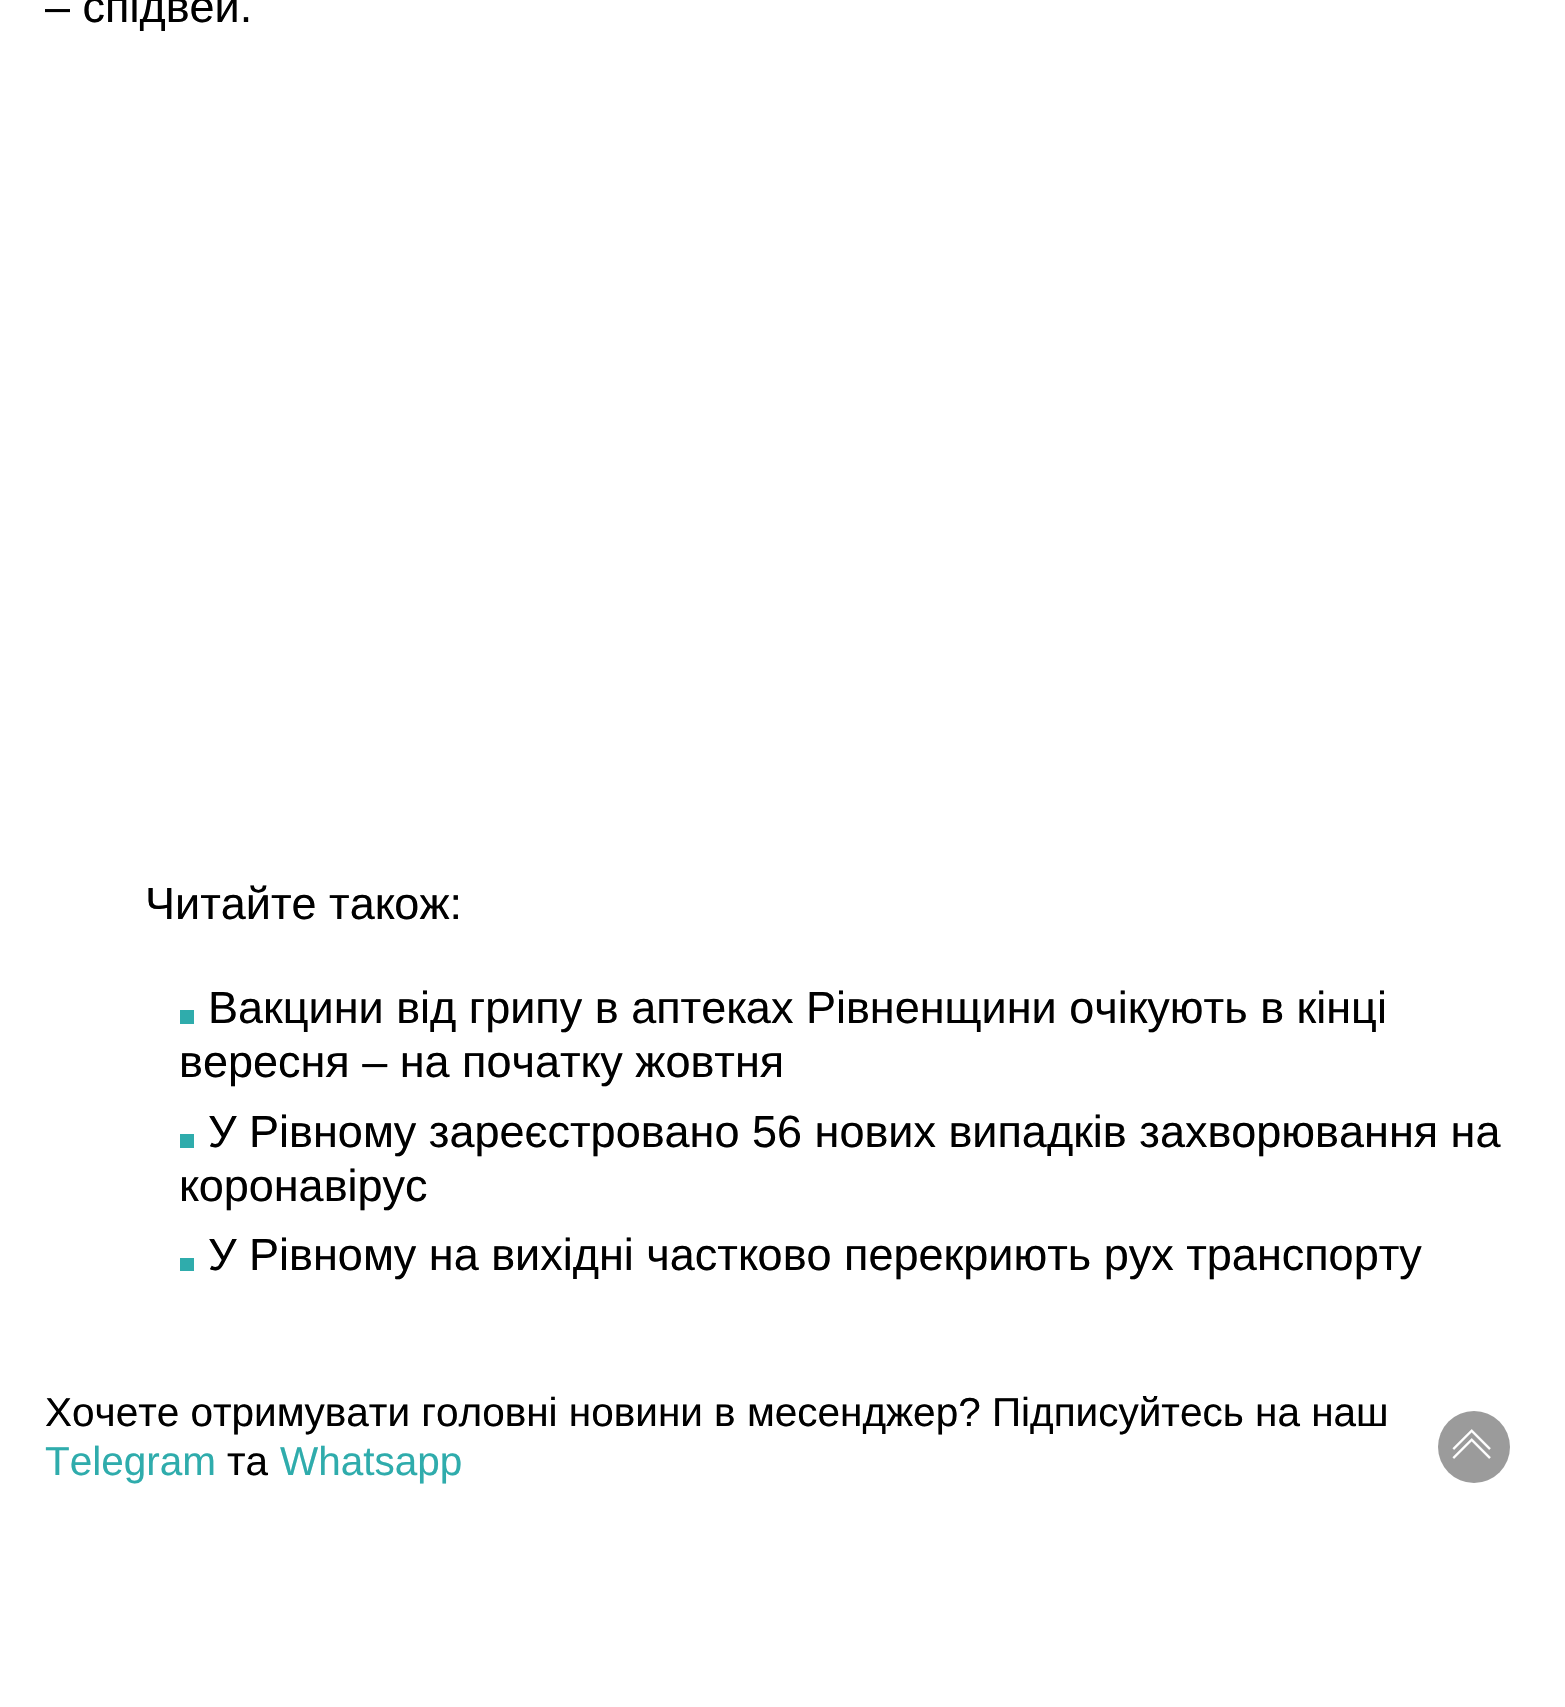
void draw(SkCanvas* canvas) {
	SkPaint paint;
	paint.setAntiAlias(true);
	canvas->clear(0xffffffff);
	SkFont f1(fontMgr->matchFamilyStyle("Liberation Sans", SkFontStyle::Normal()), 45);
	f1.setSubpixel(true);
	paint.setColor(0xff000000);
	canvas->drawString("– спідвей.", 45, 22, f1, paint);
	canvas->drawString("Читайте також:", 145, 919, f1, paint);
	paint.setColor(0xff2facac);
	canvas->drawRect(SkRect::MakeXYWH(180, 1010, 14, 14), paint);
	paint.setColor(0xff000000);
	canvas->drawString("Вакцини від грипу в аптеках Рівненщини очікують в кінці", 208, 1023, f1, paint);
	canvas->drawString("вересня – на початку жовтня", 179, 1077, f1, paint);
	paint.setColor(0xff2facac);
	canvas->drawRect(SkRect::MakeXYWH(180, 1134, 14, 14), paint);
	paint.setColor(0xff000000);
	canvas->drawString("У Рівному зареєстровано 56 нових випадків захворювання на", 208, 1147, f1, paint);
	canvas->drawString("коронавірус", 179, 1201, f1, paint);
	paint.setColor(0xff2facac);
	canvas->drawRect(SkRect::MakeXYWH(180, 1258, 14, 13), paint);
	paint.setColor(0xff000000);
	canvas->drawString("У Рівному на вихідні частково перекриють рух транспорту", 208, 1270, f1, paint);
	SkFont f2(fontMgr->matchFamilyStyle("Liberation Sans", SkFontStyle::Normal()), 40.5);
	f2.setSubpixel(true);
	canvas->drawString("Хочете отримувати головні новини в месенджер? Підписуйтесь на наш", 45, 1426, f2, paint);
	paint.setColor(0xff2facac);
	canvas->drawString("Telegram", 45, 1475, f2, paint);
	paint.setColor(0xff000000);
	canvas->drawString("та", 227, 1475, f2, paint);
	paint.setColor(0xff2facac);
	canvas->drawString("Whatsapp", 280, 1475, f2, paint);
	paint.setColor(0xff9b9b9b);
	canvas->drawCircle(1474, 1447, 36, paint);
	paint.setColor(0xffffffff);
	canvas->save();
	canvas->rotate(135, 1478, 1423);
	canvas->drawString("∟", 1478, 1423, f1, paint);
	canvas->restore();
	canvas->save();
	canvas->rotate(135, 1478, 1432);
	canvas->drawString("∟", 1478, 1432, f1, paint);
	canvas->restore();
}
